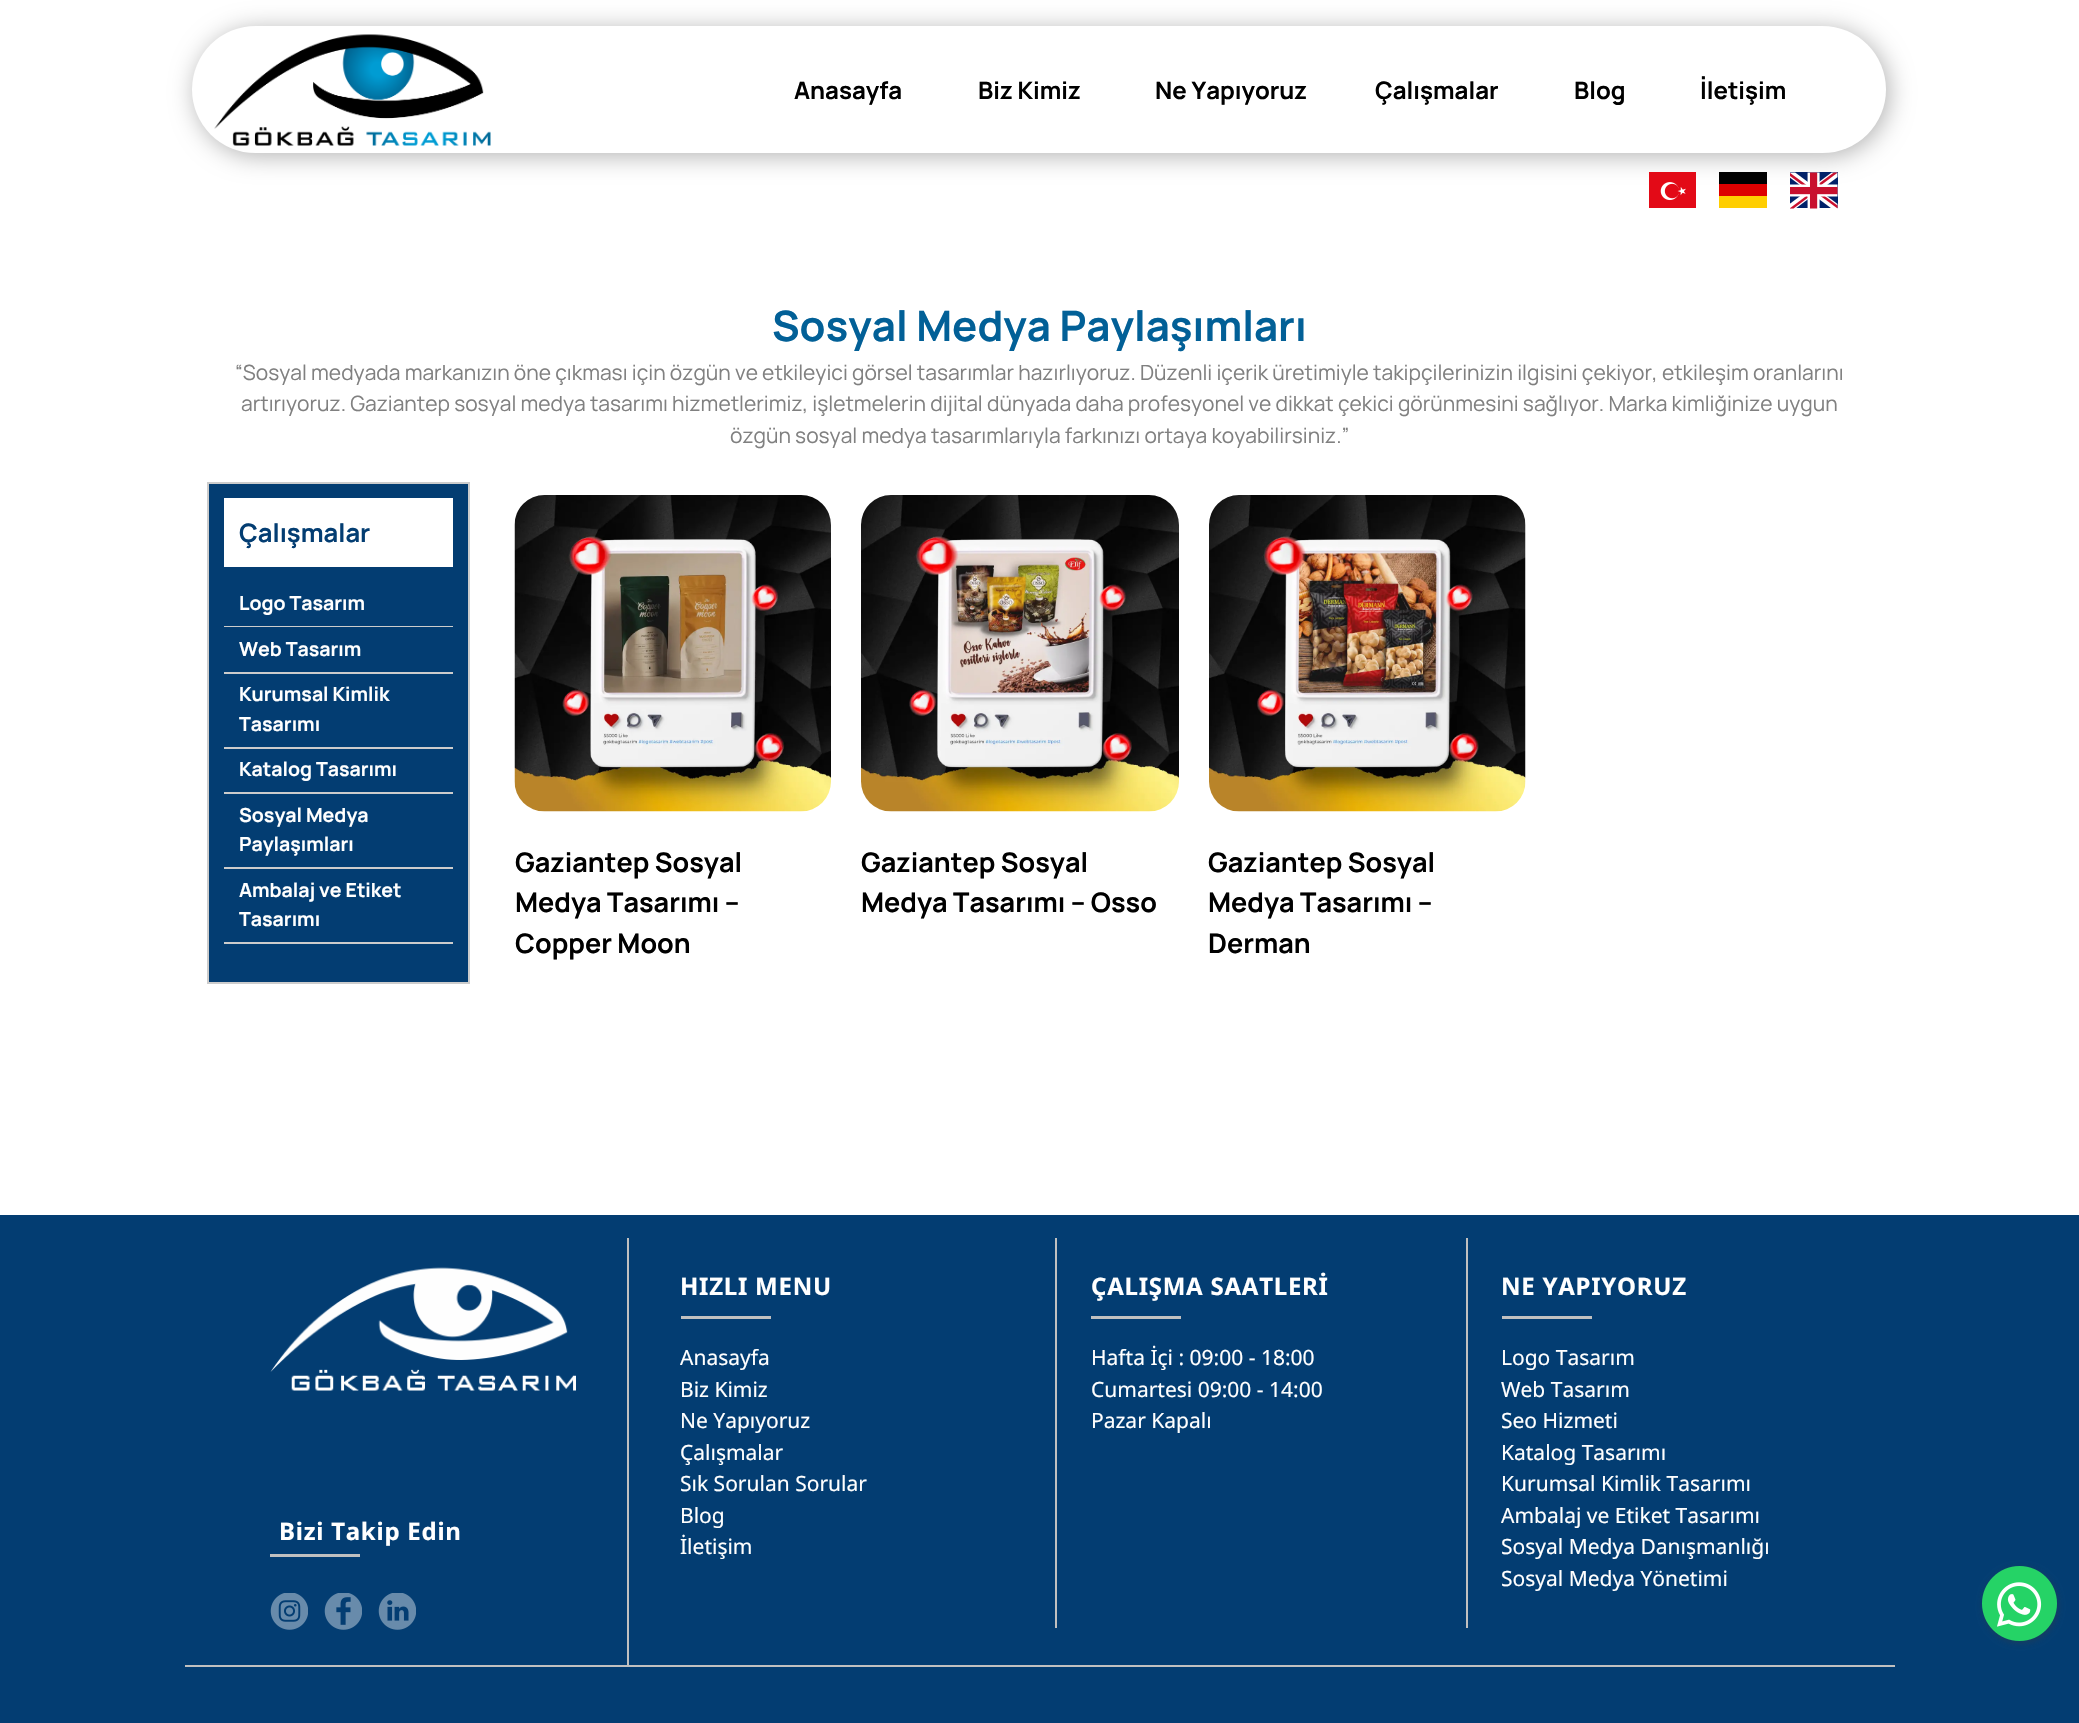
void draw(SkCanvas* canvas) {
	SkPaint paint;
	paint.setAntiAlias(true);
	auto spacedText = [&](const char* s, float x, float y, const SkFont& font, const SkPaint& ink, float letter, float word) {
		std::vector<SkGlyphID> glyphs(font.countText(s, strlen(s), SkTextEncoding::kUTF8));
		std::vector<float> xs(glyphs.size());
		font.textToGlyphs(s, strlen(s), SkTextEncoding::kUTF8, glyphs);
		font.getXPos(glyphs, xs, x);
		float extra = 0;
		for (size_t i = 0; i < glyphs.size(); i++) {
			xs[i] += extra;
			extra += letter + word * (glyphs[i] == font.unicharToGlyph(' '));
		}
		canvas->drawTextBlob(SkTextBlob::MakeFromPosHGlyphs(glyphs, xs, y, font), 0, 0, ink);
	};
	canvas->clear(0xffffffff);
	paint.setColor(0x4d000000);
	paint.setMaskFilter(SkMaskFilter::MakeBlur(kNormal_SkBlurStyle, 12));
	canvas->drawRoundRect(SkRect::MakeXYWH(195, 29, 1694, 127), 63.5, 63.5, paint);
	paint.setMaskFilter(nullptr);
	paint.setColor(0xffffffff);
	canvas->drawRoundRect(SkRect::MakeXYWH(192, 26, 1694, 127), 63.5, 63.5, paint);
	SkFont f1(fontMgr->matchFamilyStyle("Manrope", SkFontStyle::Bold()), 24);
	f1.setSubpixel(true);
	paint.setColor(0xff000000);
	canvas->drawString("Anasayfa", 794, 99, f1, paint);
	canvas->drawString("Biz Kimiz", 978, 99, f1, paint);
	canvas->drawString("Ne Yapıyoruz", 1155, 99, f1, paint);
	canvas->drawString("Çalışmalar", 1375, 99, f1, paint);
	canvas->drawString("Blog", 1574, 99, f1, paint);
	canvas->drawString("İletişim", 1700, 99, f1, paint);
	canvas->drawImageRect(SkImages::DeferredFromEncodedData(SkData::MakeFromFileName("img1.png")), SkRect::MakeXYWH(1649, 172, 47, 36), SkSamplingOptions());
	canvas->drawRect(SkRect::MakeXYWH(1719, 172, 48, 12), paint);
	paint.setColor(0xffdd0000);
	canvas->drawRect(SkRect::MakeXYWH(1719, 184, 48, 12), paint);
	paint.setColor(0xffffce00);
	canvas->drawRect(SkRect::MakeXYWH(1719, 196, 48, 12), paint);
	canvas->drawImageRect(SkImages::DeferredFromEncodedData(SkData::MakeFromFileName("img2.png")), SkRect::MakeXYWH(1790, 172, 48, 37), SkSamplingOptions());
	canvas->drawImageRect(SkImages::DeferredFromEncodedData(SkData::MakeFromFileName("img3.png")), SkRect::MakeXYWH(214, 34, 277, 112), SkSamplingOptions());
	SkFont f2(fontMgr->matchFamilyStyle("Manrope", SkFontStyle::Bold()), 42);
	f2.setSubpixel(true);
	paint.setColor(0xff026097);
	canvas->drawString("Sosyal Medya Paylaşımları", 772, 341, f2, paint);
	SkFont f3(fontMgr->matchFamilyStyle("Manrope", SkFontStyle::Normal()), 21);
	f3.setSubpixel(true);
	paint.setColor(0xff808080);
	canvas->drawString("“Sosyal medyada markanızın öne çıkması için özgün ve etkileyici görsel tasarımlar hazırlıyoruz. Düzenli içerik üretimiyle takipçilerinizin ilgisini çekiyor, etkileşim oranlarını", 235, 380, f3, paint);
	canvas->drawString("artırıyoruz. Gaziantep sosyal medya tasarımı hizmetlerimiz, işletmelerin dijital dünyada daha profesyonel ve dikkat çekici görünmesini sağlıyor. Marka kimliğinize uygun", 241, 411, f3, paint);
	canvas->drawString("özgün sosyal medya tasarımlarıyla farkınızı ortaya koyabilirsiniz.”", 730, 443, f3, paint);
	paint.setColor(0xff033d72);
	canvas->drawRect(SkRect::MakeXYWH(208, 483, 261, 500), paint);
	paint.setStroke(true);
	paint.setStrokeWidth(2);
	paint.setColor(0xffcccccc);
	canvas->drawRect(SkRect::MakeXYWH(208, 483, 261, 500), paint);
	paint.setStroke(false);
	paint.setColor(0xffffffff);
	canvas->drawRect(SkRect::MakeXYWH(224, 498, 229, 69), paint);
	SkFont f4(fontMgr->matchFamilyStyle("Manrope", SkFontStyle::Bold()), 25.5);
	f4.setSubpixel(true);
	paint.setColor(0xff033d72);
	canvas->drawString("Çalışmalar", 239, 542, f4, paint);
	paint.setColor(0xffcccccc);
	canvas->drawRect(SkRect::MakeXYWH(224, 626, 229, 1), paint);
	SkFont f5(fontMgr->matchFamilyStyle("Manrope", SkFontStyle::Bold()), 19.5);
	f5.setSubpixel(true);
	paint.setColor(0xffffffff);
	canvas->drawString("Logo Tasarım", 239, 610, f5, paint);
	paint.setColor(0xffcccccc);
	canvas->drawRect(SkRect::MakeXYWH(224, 672, 229, 2), paint);
	paint.setColor(0xffffffff);
	canvas->drawString("Web Tasarım", 239, 656, f5, paint);
	paint.setColor(0xffcccccc);
	canvas->drawRect(SkRect::MakeXYWH(224, 747, 229, 2), paint);
	paint.setColor(0xffffffff);
	canvas->drawString("Kurumsal Kimlik", 239, 701, f5, paint);
	canvas->drawString("Tasarımı", 239, 731, f5, paint);
	paint.setColor(0xffcccccc);
	canvas->drawRect(SkRect::MakeXYWH(224, 792, 229, 2), paint);
	paint.setColor(0xffffffff);
	canvas->drawString("Katalog Tasarımı", 239, 776, f5, paint);
	paint.setColor(0xffcccccc);
	canvas->drawRect(SkRect::MakeXYWH(224, 867, 229, 2), paint);
	paint.setColor(0xffffffff);
	canvas->drawString("Sosyal Medya", 239, 822, f5, paint);
	canvas->drawString("Paylaşımları", 239, 851, f5, paint);
	paint.setColor(0xffcccccc);
	canvas->drawRect(SkRect::MakeXYWH(224, 942, 229, 2), paint);
	paint.setColor(0xffffffff);
	canvas->drawString("Ambalaj ve Etiket", 239, 897, f5, paint);
	canvas->drawString("Tasarımı", 239, 926, f5, paint);
	canvas->drawImageRect(SkImages::DeferredFromEncodedData(SkData::MakeFromFileName("img4.png")), SkRect::MakeXYWH(514, 495, 317, 317), SkSamplingOptions());
	SkFont f6(fontMgr->matchFamilyStyle("Manrope", SkFontStyle::Bold()), 27);
	f6.setSubpixel(true);
	paint.setColor(0xff000000);
	canvas->drawString("Gaziantep Sosyal", 515, 872, f6, paint);
	canvas->drawString("Medya Tasarımı –", 515, 912, f6, paint);
	canvas->drawString("Copper Moon", 515, 953, f6, paint);
	canvas->drawImageRect(SkImages::DeferredFromEncodedData(SkData::MakeFromFileName("img5.png")), SkRect::MakeXYWH(861, 495, 318, 317), SkSamplingOptions());
	canvas->drawString("Gaziantep Sosyal", 861, 872, f6, paint);
	canvas->drawString("Medya Tasarımı – Osso", 861, 912, f6, paint);
	canvas->drawImageRect(SkImages::DeferredFromEncodedData(SkData::MakeFromFileName("img6.png")), SkRect::MakeXYWH(1209, 495, 317, 317), SkSamplingOptions());
	canvas->drawString("Gaziantep Sosyal", 1208, 872, f6, paint);
	canvas->drawString("Medya Tasarımı –", 1208, 912, f6, paint);
	canvas->drawString("Derman", 1208, 953, f6, paint);
	paint.setColor(0xff033d72);
	canvas->drawRect(SkRect::MakeXYWH(0, 1215, 2079, 508), paint);
	paint.setColor(0xffc0c0c0);
	canvas->drawRect(SkRect::MakeXYWH(627, 1238, 2, 427), paint);
	canvas->drawImageRect(SkImages::DeferredFromEncodedData(SkData::MakeFromFileName("img7.png")), SkRect::MakeXYWH(270, 1267, 306, 124), SkSamplingOptions());
	SkFont f7(fontMgr->matchFamilyStyle("Noto Sans", SkFontStyle::Bold()), 24);
	f7.setSubpixel(true);
	paint.setColor(0xffffffff);
	spacedText("Bizi Takip Edin", 279, 1540, f7, paint, 0.75, 0);
	paint.setColor(0xffc0c0c0);
	canvas->drawRect(SkRect::MakeXYWH(270, 1554, 90, 3), paint);
	canvas->drawImageRect(SkImages::DeferredFromEncodedData(SkData::MakeFromFileName("img8.png")), SkRect::MakeXYWH(270, 1593, 38, 37), SkSamplingOptions());
	canvas->drawImageRect(SkImages::DeferredFromEncodedData(SkData::MakeFromFileName("img9.png")), SkRect::MakeXYWH(324, 1593, 38, 37), SkSamplingOptions());
	canvas->drawImageRect(SkImages::DeferredFromEncodedData(SkData::MakeFromFileName("img10.png")), SkRect::MakeXYWH(378, 1593, 38, 37), SkSamplingOptions());
	canvas->drawRect(SkRect::MakeXYWH(1055, 1238, 2, 390), paint);
	paint.setColor(0xffffffff);
	spacedText("HIZLI MENU", 680, 1295, f7, paint, 0.75, 0);
	paint.setColor(0xffc0c0c0);
	canvas->drawRect(SkRect::MakeXYWH(681, 1316, 90, 3), paint);
	SkFont f8(fontMgr->matchFamilyStyle("Noto Sans", SkFontStyle::Normal()), 21);
	f8.setSubpixel(true);
	paint.setColor(0xffffffff);
	canvas->drawString("Anasayfa", 680, 1365, f8, paint);
	canvas->drawString("Biz Kimiz", 680, 1397, f8, paint);
	canvas->drawString("Ne Yapıyoruz", 680, 1428, f8, paint);
	canvas->drawString("Çalışmalar", 680, 1460, f8, paint);
	canvas->drawString("Sık Sorulan Sorular", 680, 1491, f8, paint);
	canvas->drawString("Blog", 680, 1523, f8, paint);
	canvas->drawString("İletişim", 680, 1554, f8, paint);
	paint.setColor(0xffc0c0c0);
	canvas->drawRect(SkRect::MakeXYWH(1466, 1238, 2, 390), paint);
	paint.setColor(0xffffffff);
	spacedText("ÇALIŞMA SAATLERİ", 1091, 1295, f7, paint, 0.75, 0);
	paint.setColor(0xffc0c0c0);
	canvas->drawRect(SkRect::MakeXYWH(1091, 1316, 90, 3), paint);
	paint.setColor(0xffffffff);
	canvas->drawString("Hafta İçi : 09:00 - 18:00", 1091, 1365, f8, paint);
	canvas->drawString("Cumartesi 09:00 - 14:00", 1091, 1397, f8, paint);
	canvas->drawString("Pazar Kapalı", 1091, 1428, f8, paint);
	spacedText("NE YAPIYORUZ", 1501, 1295, f7, paint, 0.75, 0);
	paint.setColor(0xffc0c0c0);
	canvas->drawRect(SkRect::MakeXYWH(1502, 1316, 90, 3), paint);
	paint.setColor(0xffffffff);
	canvas->drawString("Logo Tasarım", 1501, 1365, f8, paint);
	canvas->drawString("Web Tasarım", 1501, 1397, f8, paint);
	canvas->drawString("Seo Hizmeti", 1501, 1428, f8, paint);
	canvas->drawString("Katalog Tasarımı", 1501, 1460, f8, paint);
	canvas->drawString("Kurumsal Kimlik Tasarımı", 1501, 1491, f8, paint);
	canvas->drawString("Ambalaj ve Etiket Tasarımı", 1501, 1523, f8, paint);
	canvas->drawString("Sosyal Medya Danışmanlığı", 1501, 1554, f8, paint);
	canvas->drawString("Sosyal Medya Yönetimi", 1501, 1586, f8, paint);
	paint.setColor(0xffc0c0c0);
	canvas->drawRect(SkRect::MakeXYWH(185, 1665, 1710, 2), paint);
	paint.setColor(0x663c3c3c);
	paint.setMaskFilter(SkMaskFilter::MakeBlur(kNormal_SkBlurStyle, 3));
	canvas->drawRoundRect(SkRect::MakeXYWH(1983, 1568, 75, 75), 37.5, 37.5, paint);
	paint.setMaskFilter(nullptr);
	canvas->drawImageRect(SkImages::DeferredFromEncodedData(SkData::MakeFromFileName("img11.png")), SkRect::MakeXYWH(1982, 1566, 75, 75), SkSamplingOptions());
}
